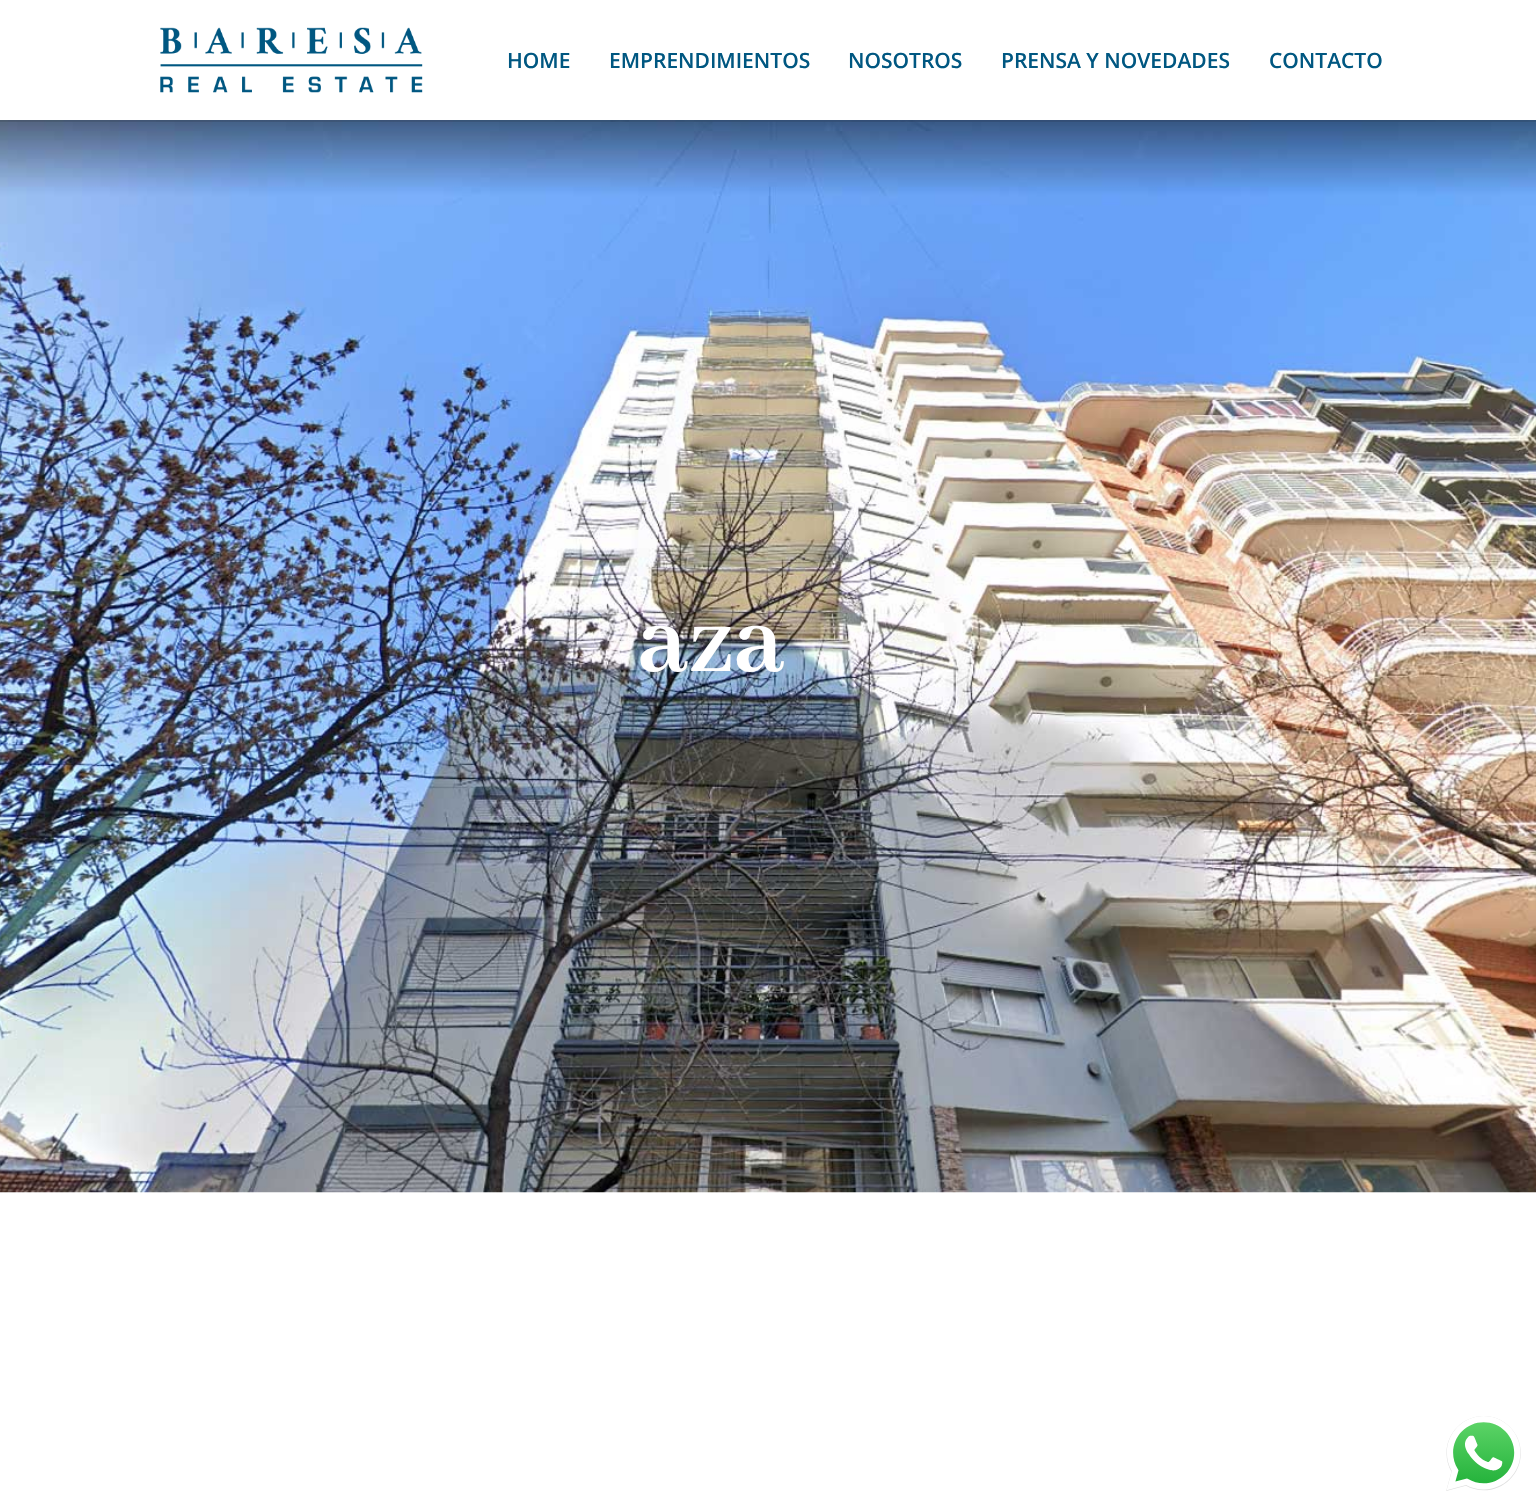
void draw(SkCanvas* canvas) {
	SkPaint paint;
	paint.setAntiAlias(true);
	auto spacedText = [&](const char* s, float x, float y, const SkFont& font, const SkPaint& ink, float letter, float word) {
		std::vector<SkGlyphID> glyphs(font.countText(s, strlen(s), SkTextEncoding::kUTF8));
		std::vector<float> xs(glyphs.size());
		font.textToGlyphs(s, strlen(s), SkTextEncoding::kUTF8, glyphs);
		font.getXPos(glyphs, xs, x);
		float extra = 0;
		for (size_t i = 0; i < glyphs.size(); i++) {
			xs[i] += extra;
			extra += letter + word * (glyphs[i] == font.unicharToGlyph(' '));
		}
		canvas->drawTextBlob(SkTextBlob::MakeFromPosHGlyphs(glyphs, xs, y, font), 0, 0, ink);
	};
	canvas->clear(0xffffffff);
	canvas->drawImageRect(SkImages::DeferredFromEncodedData(SkData::MakeFromFileName("img2.png")), SkRect::MakeXYWH(0, 120, 1536, 1073), SkSamplingOptions());
	paint.setColor(0x1a000000);
	canvas->drawRect(SkRect::MakeXYWH(0, 120, 1536, 2), paint);
	canvas->drawImageRect(SkImages::DeferredFromEncodedData(SkData::MakeFromFileName("img1.png")), SkRect::MakeXYWH(160, 27, 263, 66), SkSamplingOptions());
	SkFont f1(fontMgr->matchFamilyStyle("Open Sans", SkFontStyle(600, SkFontStyle::kNormal_Width, SkFontStyle::kUpright_Slant)), 21);
	f1.setSubpixel(true);
	paint.setColor(0xff005781);
	canvas->drawString("HOME", 507, 68, f1, paint);
	canvas->drawString("EMPRENDIMIENTOS", 609, 68, f1, paint);
	canvas->drawString("NOSOTROS", 848, 68, f1, paint);
	canvas->drawString("PRENSA Y NOVEDADES", 1001, 68, f1, paint);
	canvas->drawString("CONTACTO", 1269, 68, f1, paint);
	SkFont f2(fontMgr->matchFamilyStyle("Abhaya Libre", SkFontStyle::Bold()), 105);
	f2.setSubpixel(true);
	paint.setColor(0xffffffff);
	spacedText("aza", 638, 671, f2, paint, 1.5, 0);
	canvas->drawImageRect(SkImages::DeferredFromEncodedData(SkData::MakeFromFileName("img3.png")), SkRect::MakeXYWH(1446, 1416, 75, 75), SkSamplingOptions());
}
